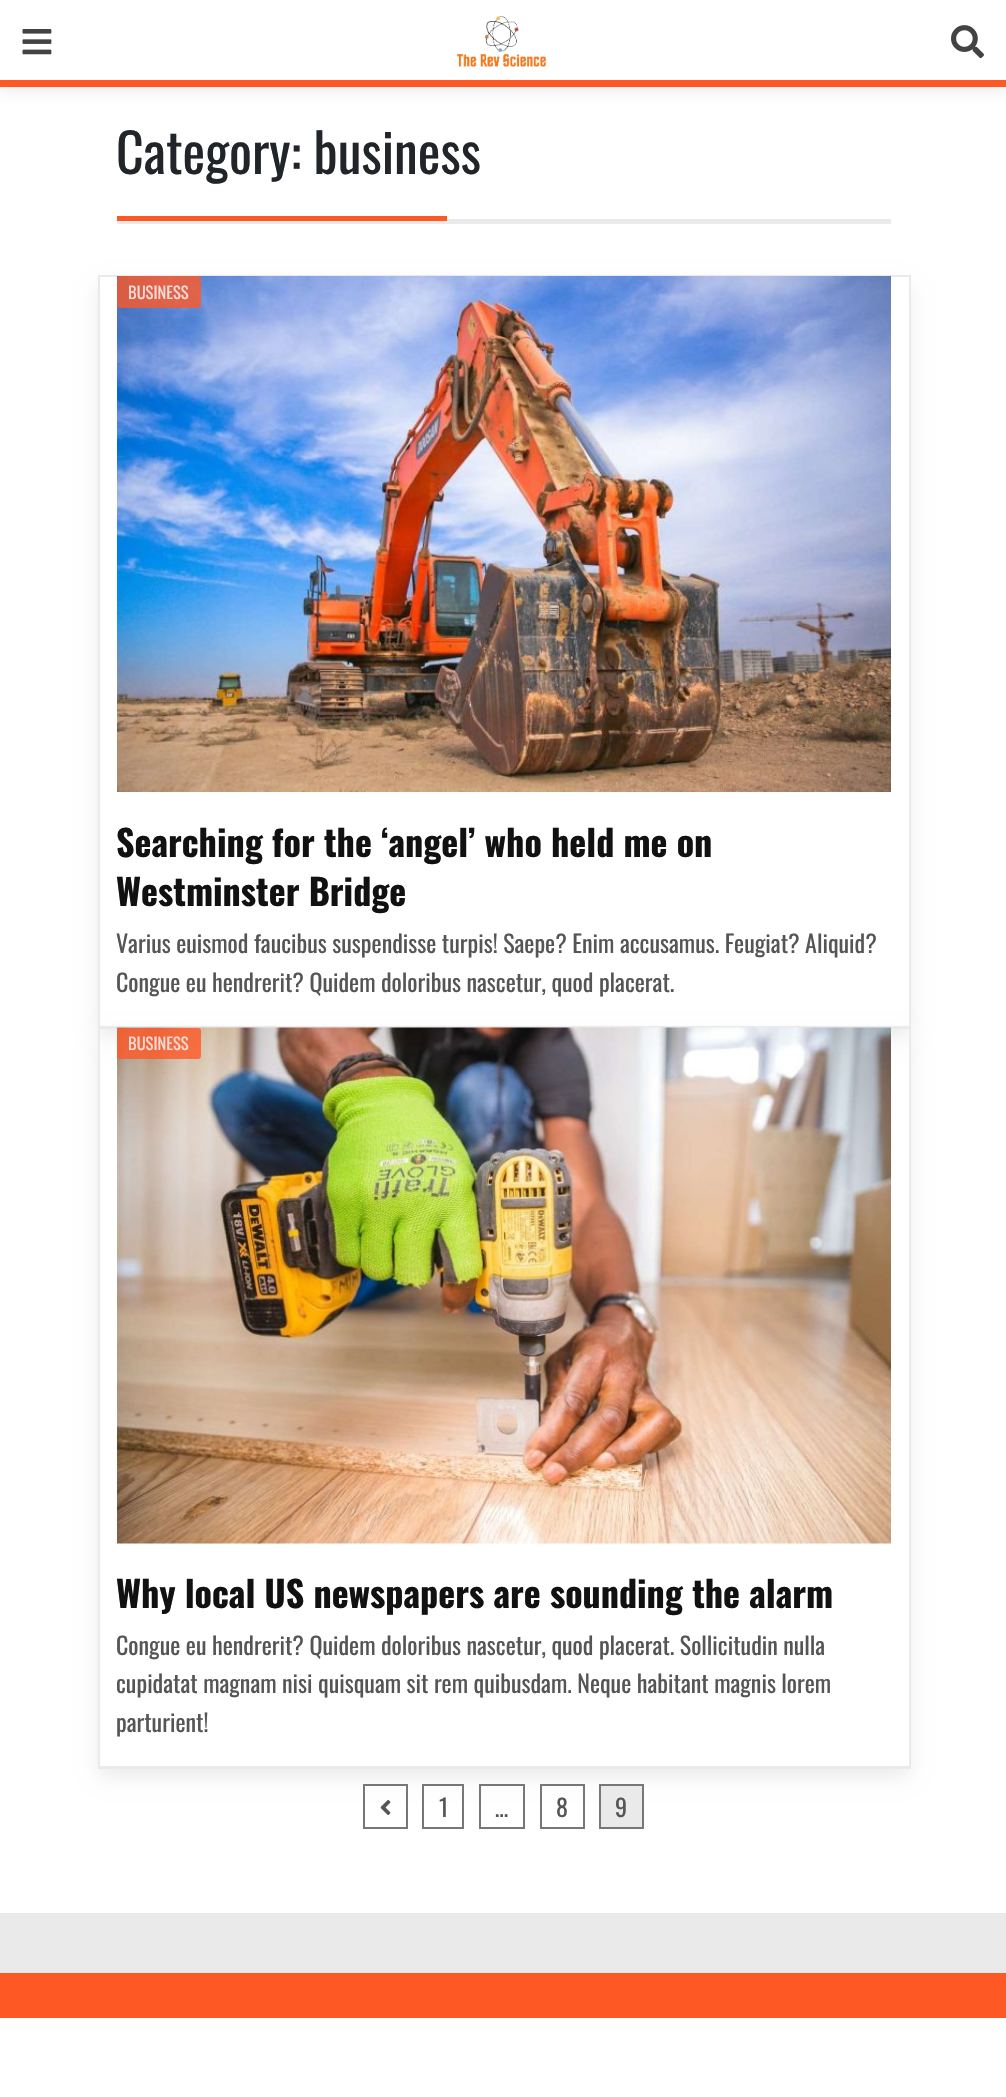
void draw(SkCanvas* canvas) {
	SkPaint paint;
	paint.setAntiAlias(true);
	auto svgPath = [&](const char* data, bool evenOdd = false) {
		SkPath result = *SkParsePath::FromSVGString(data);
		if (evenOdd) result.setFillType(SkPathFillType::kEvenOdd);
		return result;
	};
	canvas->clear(0xffffffff);
	canvas->save();
	canvas->clipRect(SkRect::MakeXYWH(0, 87, 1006, 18));
	paint.setColor(0xffeaeaea);
	paint.setMaskFilter(SkMaskFilter::MakeBlur(kNormal_SkBlurStyle, 7.5));
	canvas->drawRect(SkRect::MakeXYWH(0, 3, 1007, 87), paint);
	paint.setMaskFilter(nullptr);
	canvas->restore();
	paint.setColor(0xfffe5825);
	canvas->drawRect(SkRect::MakeXYWH(0, 80, 1006, 7), paint);
	canvas->drawImageRect(SkImages::DeferredFromEncodedData(SkData::MakeFromFileName("img1.png")), SkRect::MakeXYWH(22, 29, 30, 26), SkSamplingOptions());
	canvas->drawImageRect(SkImages::DeferredFromEncodedData(SkData::MakeFromFileName("img2.png")), SkRect::MakeXYWH(456, 16, 90, 51), SkSamplingOptions());
	canvas->drawImageRect(SkImages::DeferredFromEncodedData(SkData::MakeFromFileName("img3.png")), SkRect::MakeXYWH(951, 25, 33, 34), SkSamplingOptions());
	paint.setColor(0xffeaeaea);
	canvas->drawRect(SkRect::MakeXYWH(117, 219, 774, 5), paint);
	SkFont f1(fontMgr->matchFamilyStyle("Oswald", SkFontStyle::Normal()), 54);
	f1.setSubpixel(true);
	paint.setColor(0xff212529);
	canvas->drawString("Category: business", 116, 174, f1, paint);
	paint.setColor(0xfffe5825);
	canvas->drawRect(SkRect::MakeXYWH(117, 216, 330, 5), paint);
	paint.setStroke(true);
	paint.setStrokeWidth(2);
	paint.setColor(0xffeaeaea);
	canvas->drawRect(SkRect::MakeXYWH(99, 276, 811, 752), paint);
	canvas->save();
	canvas->clipPath(svgPath("M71 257H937V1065H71ZM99 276H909V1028H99Z", true), true);
	paint.setStroke(false);
	paint.setMaskFilter(SkMaskFilter::MakeBlur(kNormal_SkBlurStyle, 9));
	canvas->drawRect(SkRect::MakeXYWH(99, 285, 810, 752), paint);
	paint.setMaskFilter(nullptr);
	canvas->restore();
	canvas->drawImageRect(SkImages::DeferredFromEncodedData(SkData::MakeFromFileName("img4.png")), SkRect::MakeXYWH(117, 276, 774, 516), SkSamplingOptions());
	paint.setColor(0xccfe5825);
	canvas->drawRoundRect(SkRect::MakeXYWH(117, 276, 84, 32), 3, 3, paint);
	SkFont f2(fontMgr->matchFamilyStyle("Oswald", SkFontStyle::Normal()), 16.5);
	f2.setSubpixel(true);
	paint.setColor(0xfff5dcd7);
	canvas->drawString("BUSINESS", 128, 299, f2, paint);
	SkFont f3(fontMgr->matchFamilyStyle("Oswald", SkFontStyle::Bold()), 36);
	f3.setSubpixel(true);
	paint.setColor(0xff111111);
	canvas->drawString("Searching for the ‘angel’ who held me on", 116, 857, f3, paint);
	canvas->drawString("Westminster Bridge", 116, 906, f3, paint);
	SkFont f4(fontMgr->matchFamilyStyle("Oswald", SkFontStyle::Normal()), 24);
	f4.setSubpixel(true);
	paint.setColor(0xff555555);
	canvas->drawString("Varius euismod faucibus suspendisse turpis! Saepe? Enim accusamus. Feugiat? Aliquid?", 116, 953, f4, paint);
	canvas->drawString("Congue eu hendrerit? Quidem doloribus nascetur, quod placerat.", 116, 992, f4, paint);
	paint.setStroke(true);
	paint.setColor(0xffeaeaea);
	canvas->drawRect(SkRect::MakeXYWH(99, 1027, 811, 741), paint);
	canvas->save();
	canvas->clipPath(svgPath("M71 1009H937V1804H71ZM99 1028H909V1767H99Z", true), true);
	paint.setStroke(false);
	paint.setMaskFilter(SkMaskFilter::MakeBlur(kNormal_SkBlurStyle, 9));
	canvas->drawRect(SkRect::MakeXYWH(99, 1037, 810, 739), paint);
	paint.setMaskFilter(nullptr);
	canvas->restore();
	canvas->drawRect(SkRect::MakeXYWH(99, 1766, 810, 1), paint);
	canvas->drawImageRect(SkImages::DeferredFromEncodedData(SkData::MakeFromFileName("img5.png")), SkRect::MakeXYWH(117, 1027, 774, 517), SkSamplingOptions());
	paint.setColor(0xccfe5825);
	canvas->drawRoundRect(SkRect::MakeXYWH(117, 1028, 84, 31), 3, 3, paint);
	paint.setColor(0xfff5dcd7);
	canvas->drawString("BUSINESS", 128, 1050, f2, paint);
	paint.setColor(0xff111111);
	canvas->drawString("Why local US newspapers are sounding the alarm", 116, 1608, f3, paint);
	paint.setColor(0xff555555);
	canvas->drawString("Congue eu hendrerit? Quidem doloribus nascetur, quod placerat. Sollicitudin nulla", 116, 1655, f4, paint);
	canvas->drawString("cupidatat magnam nisi quisquam sit rem quibusdam. Neque habitant magnis lorem", 116, 1693, f4, paint);
	canvas->drawString("parturient!", 116, 1732, f4, paint);
	paint.setStroke(true);
	paint.setColor(0xff777777);
	canvas->drawRect(SkRect::MakeXYWH(364, 1785, 43, 43), paint);
	canvas->drawImageRect(SkImages::DeferredFromEncodedData(SkData::MakeFromFileName("img6.png")), SkRect::MakeXYWH(380, 1800, 11, 15), SkSamplingOptions());
	canvas->drawRect(SkRect::MakeXYWH(423, 1785, 40, 43), paint);
	paint.setStroke(false);
	paint.setColor(0xff555555);
	canvas->drawString("1", 439, 1817, f4, paint);
	paint.setStroke(true);
	paint.setColor(0xff777777);
	canvas->drawRect(SkRect::MakeXYWH(480, 1785, 44, 43), paint);
	paint.setStroke(false);
	paint.setColor(0xff555555);
	canvas->drawString("…", 495, 1817, f4, paint);
	paint.setStroke(true);
	paint.setColor(0xff777777);
	canvas->drawRect(SkRect::MakeXYWH(541, 1785, 43, 43), paint);
	paint.setStroke(false);
	paint.setColor(0xff555555);
	canvas->drawString("8", 556, 1817, f4, paint);
	paint.setColor(0xffeaeaea);
	canvas->drawRect(SkRect::MakeXYWH(600, 1785, 43, 43), paint);
	paint.setStroke(true);
	paint.setColor(0xff777777);
	canvas->drawRect(SkRect::MakeXYWH(600, 1785, 43, 43), paint);
	paint.setStroke(false);
	paint.setColor(0xff555555);
	canvas->drawString("9", 615, 1817, f4, paint);
	paint.setColor(0xffeaeaea);
	canvas->drawRect(SkRect::MakeXYWH(0, 1913, 1006, 60), paint);
	paint.setColor(0xfffe5825);
	canvas->drawRect(SkRect::MakeXYWH(0, 1973, 1006, 45), paint);
}
